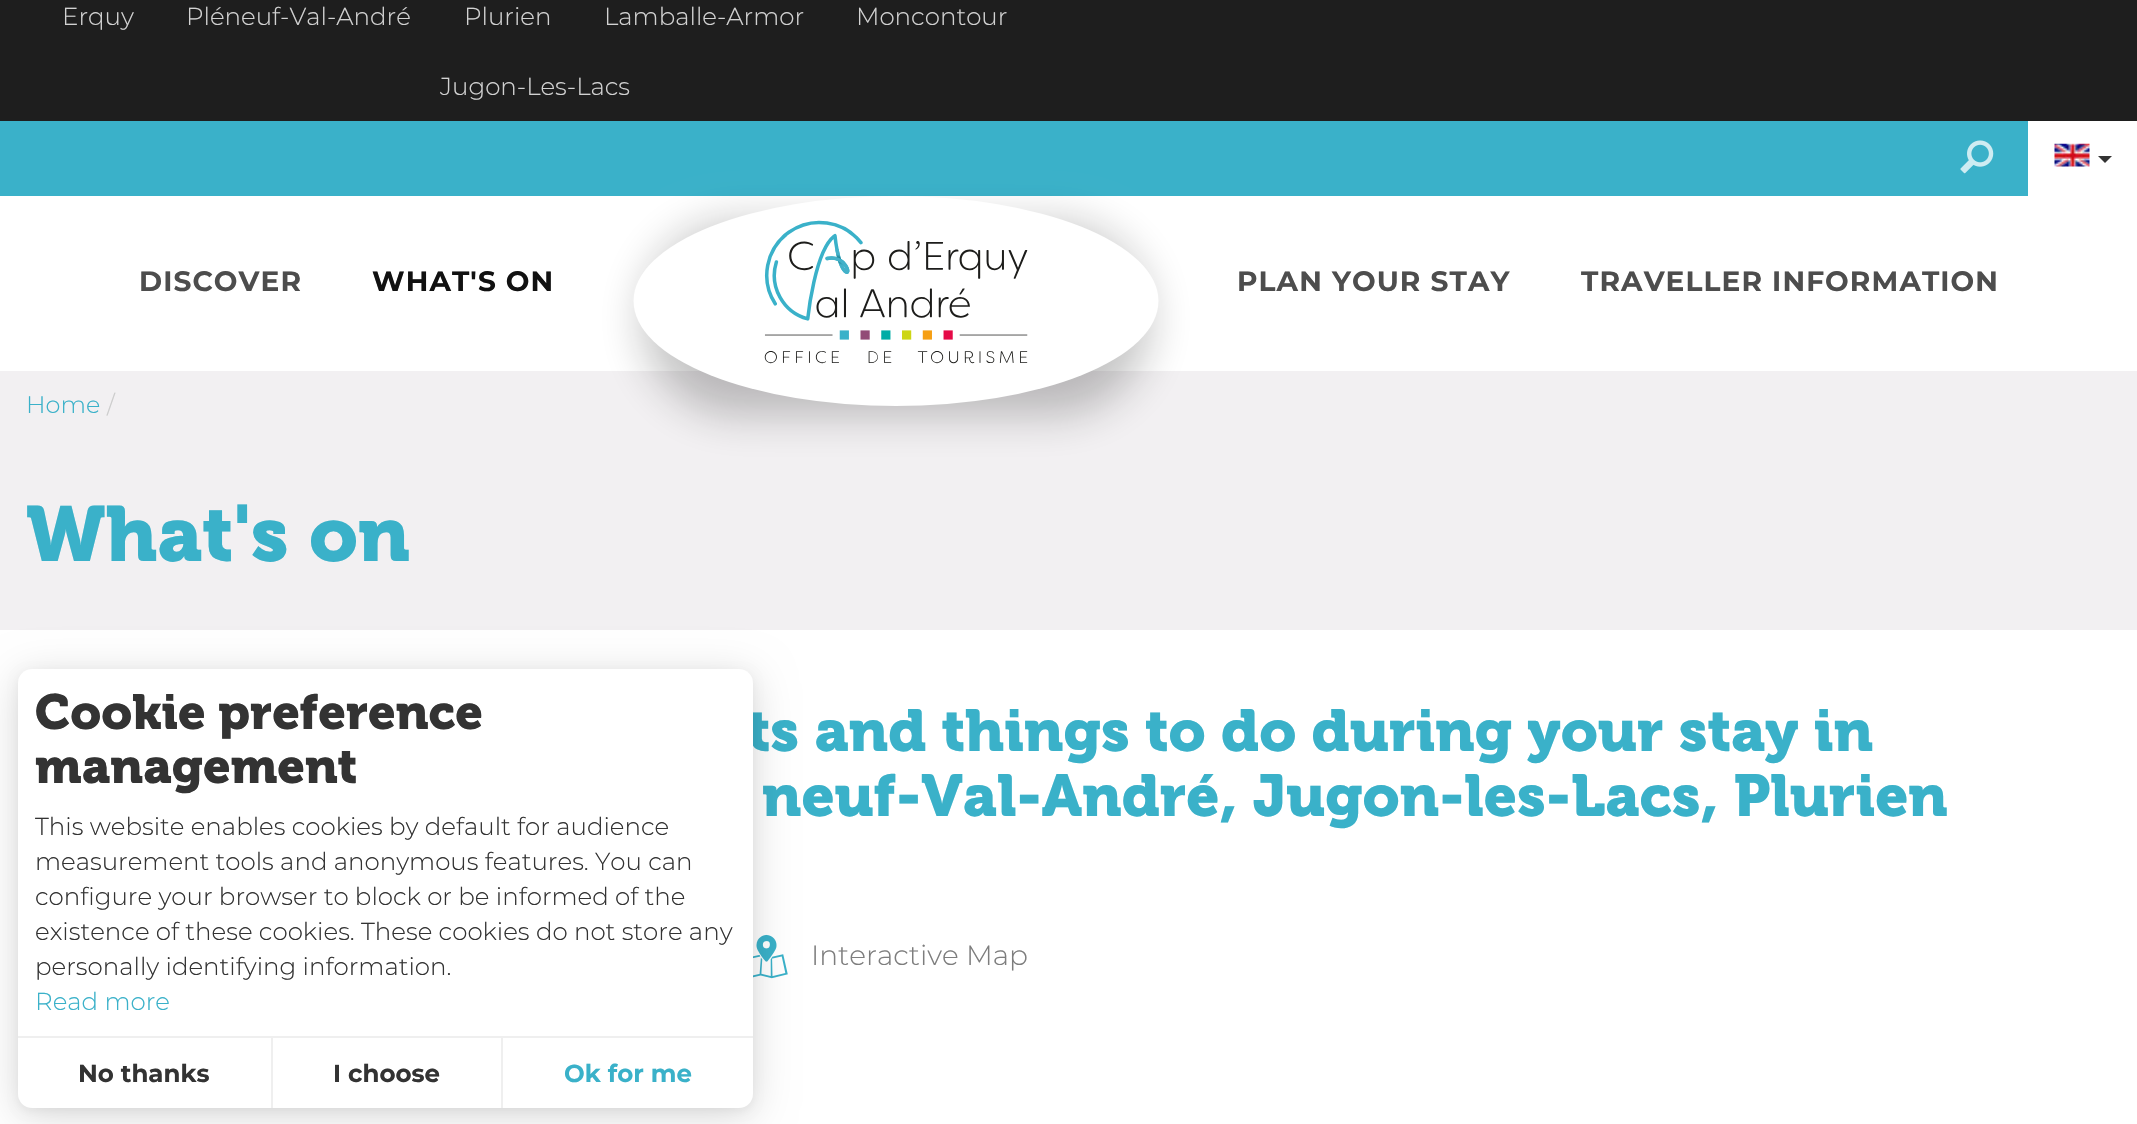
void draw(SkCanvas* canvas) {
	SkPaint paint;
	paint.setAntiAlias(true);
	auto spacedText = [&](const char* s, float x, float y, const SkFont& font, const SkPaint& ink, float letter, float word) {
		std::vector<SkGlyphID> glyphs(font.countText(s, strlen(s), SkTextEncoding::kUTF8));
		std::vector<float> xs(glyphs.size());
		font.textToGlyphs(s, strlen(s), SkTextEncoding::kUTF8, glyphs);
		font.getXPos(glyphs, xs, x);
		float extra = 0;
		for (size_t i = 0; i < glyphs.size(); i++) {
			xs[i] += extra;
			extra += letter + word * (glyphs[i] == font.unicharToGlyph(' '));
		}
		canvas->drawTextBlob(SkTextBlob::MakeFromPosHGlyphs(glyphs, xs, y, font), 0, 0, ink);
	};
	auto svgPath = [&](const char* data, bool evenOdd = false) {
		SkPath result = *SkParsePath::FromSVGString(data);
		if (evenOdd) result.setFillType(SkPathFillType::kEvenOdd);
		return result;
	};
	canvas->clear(0xffffffff);
	paint.setColor(0xff1e1e1e);
	canvas->drawRect(SkRect::MakeXYWH(0, 0, 2137, 121), paint);
	SkFont f1(fontMgr->matchFamilyStyle("Montserrat", SkFontStyle(100, SkFontStyle::kNormal_Width, SkFontStyle::kUpright_Slant)), 24.5);
	f1.setSubpixel(true);
	paint.setColor(0xffd2d2d2);
	canvas->drawString("Erquy", 62, 25, f1, paint);
	canvas->drawString("Pléneuf-Val-André", 186, 25, f1, paint);
	canvas->drawString("Plurien", 464, 25, f1, paint);
	canvas->drawString("Lamballe-Armor", 604, 25, f1, paint);
	canvas->drawString("Moncontour", 856, 25, f1, paint);
	canvas->drawString("Jugon-Les-Lacs", 440, 95, f1, paint);
	paint.setColor(0xff3ab1c9);
	canvas->drawRect(SkRect::MakeXYWH(0, 121, 2028, 75), paint);
	canvas->drawImageRect(SkImages::DeferredFromEncodedData(SkData::MakeFromFileName("img1.png")), SkRect::MakeXYWH(1960, 140, 34, 34), SkSamplingOptions());
	canvas->drawImageRect(SkImages::DeferredFromEncodedData(SkData::MakeFromFileName("img2.png")), SkRect::MakeXYWH(2054, 143, 36, 24), SkSamplingOptions());
	paint.setColor(0xff333333);
	canvas->drawPath(svgPath("M2098 156H2112L2105 163Z"), paint);
	SkFont f2(fontMgr->matchFamilyStyle("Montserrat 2", SkFontStyle(100, SkFontStyle::kNormal_Width, SkFontStyle::kUpright_Slant)), 28);
	f2.setSubpixel(true);
	paint.setColor(0xff4d4d4d);
	spacedText("DISCOVER", 139, 291, f2, paint, 1.1, 0);
	paint.setColor(0xff111111);
	spacedText("WHAT'S ON", 372, 291, f2, paint, 1.1, 0);
	paint.setColor(0xfff2f0f2);
	canvas->drawRect(SkRect::MakeXYWH(0, 371, 2137, 259), paint);
	paint.setColor(0x40111111);
	paint.setMaskFilter(SkMaskFilter::MakeBlur(kNormal_SkBlurStyle, 22));
	canvas->drawRoundRect(SkRect::MakeXYWH(642, 222, 508, 193), 96.5, 96.5, paint);
	paint.setMaskFilter(nullptr);
	paint.setColor(0xffffffff);
	canvas->drawOval(SkRect::MakeXYWH(633.5, 196, 525, 210), paint);
	canvas->drawImageRect(SkImages::DeferredFromEncodedData(SkData::MakeFromFileName("img3.png")), SkRect::MakeXYWH(764, 220, 264, 144), SkSamplingOptions());
	paint.setColor(0xff4d4d4d);
	spacedText("PLAN YOUR STAY", 1237, 291, f2, paint, 1.1, 0);
	spacedText("TRAVELLER INFORMATION", 1581, 291, f2, paint, 1.1, 0);
	SkFont f3(fontMgr->matchFamilyStyle("Montserrat", SkFontStyle(100, SkFontStyle::kNormal_Width, SkFontStyle::kUpright_Slant)), 24);
	f3.setSubpixel(true);
	paint.setColor(0xff3ab1c9);
	canvas->drawString("Home", 26, 413, f3, paint);
	paint.setColor(0xffcccccc);
	canvas->drawString("/", 107, 413, f3, paint);
	SkFont f4(fontMgr->matchFamilyStyle("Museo", SkFontStyle(600, SkFontStyle::kNormal_Width, SkFontStyle::kUpright_Slant)), 77.5);
	f4.setSubpixel(true);
	paint.setColor(0xff3ab1c9);
	canvas->drawString("What's on", 26, 561, f4, paint);
	SkFont f5(fontMgr->matchFamilyStyle("Museo", SkFontStyle(600, SkFontStyle::kNormal_Width, SkFontStyle::kUpright_Slant)), 58.8);
	f5.setSubpixel(true);
	canvas->drawString("ts and things to do during your stay in", 747, 751, f5, paint);
	canvas->drawString("neuf-Val-André, Jugon-les-Lacs, Plurien", 762, 816, f5, paint);
	canvas->drawImageRect(SkImages::DeferredFromEncodedData(SkData::MakeFromFileName("img4.png")), SkRect::MakeXYWH(753, 934, 35, 45), SkSamplingOptions());
	SkFont f6(fontMgr->matchFamilyStyle("Montserrat", SkFontStyle(100, SkFontStyle::kNormal_Width, SkFontStyle::kUpright_Slant)), 28);
	f6.setSubpixel(true);
	paint.setColor(0xff7d7d7d);
	canvas->drawString("Interactive Map", 811, 965, f6, paint);
	paint.setColor(0x0d000000);
	paint.setMaskFilter(SkMaskFilter::MakeBlur(kNormal_SkBlurStyle, 5));
	canvas->drawRoundRect(SkRect::MakeXYWH(18, 672, 735, 439), 14, 14, paint);
	paint.setMaskFilter(nullptr);
	paint.setColor(0x26000000);
	paint.setMaskFilter(SkMaskFilter::MakeBlur(kNormal_SkBlurStyle, 21));
	canvas->drawRoundRect(SkRect::MakeXYWH(18, 676, 735, 439), 14, 14, paint);
	paint.setMaskFilter(nullptr);
	paint.setColor(0xffffffff);
	canvas->drawRoundRect(SkRect::MakeXYWH(18, 669, 735, 439), 14, 14, paint);
	SkFont f7(fontMgr->matchFamilyStyle("Museo", SkFontStyle(600, SkFontStyle::kNormal_Width, SkFontStyle::kUpright_Slant)), 49);
	f7.setSubpixel(true);
	paint.setColor(0xff333333);
	canvas->drawString("Cookie preference", 35, 729, f7, paint);
	canvas->drawString("management", 35, 783, f7, paint);
	canvas->drawString("This website enables cookies by default for audience", 35, 835, f1, paint);
	canvas->drawString("measurement tools and anonymous features. You can", 35, 870, f1, paint);
	canvas->drawString("configure your browser to block or be informed of the", 35, 905, f1, paint);
	canvas->drawString("existence of these cookies. These cookies do not store any", 35, 940, f1, paint);
	canvas->drawString("personally identifying information.", 35, 975, f1, paint);
	paint.setColor(0xff3ab1c9);
	canvas->drawString("Read more", 35, 1010, f1, paint);
	paint.setColor(0xffefefef);
	canvas->drawRect(SkRect::MakeXYWH(18, 1036, 735, 2), paint);
	canvas->drawRect(SkRect::MakeXYWH(271, 1038, 2, 70), paint);
	SkFont f8(fontMgr->matchFamilyStyle("Montserrat 2", SkFontStyle(100, SkFontStyle::kNormal_Width, SkFontStyle::kUpright_Slant)), 24.5);
	f8.setSubpixel(true);
	paint.setColor(0xff333333);
	canvas->drawString("No thanks", 78, 1082, f8, paint);
	paint.setColor(0xffefefef);
	canvas->drawRect(SkRect::MakeXYWH(501, 1038, 2, 70), paint);
	paint.setColor(0xff333333);
	canvas->drawString("I choose", 333, 1082, f8, paint);
	paint.setColor(0xff3ab1c9);
	canvas->drawString("Ok for me", 564, 1082, f8, paint);
}
